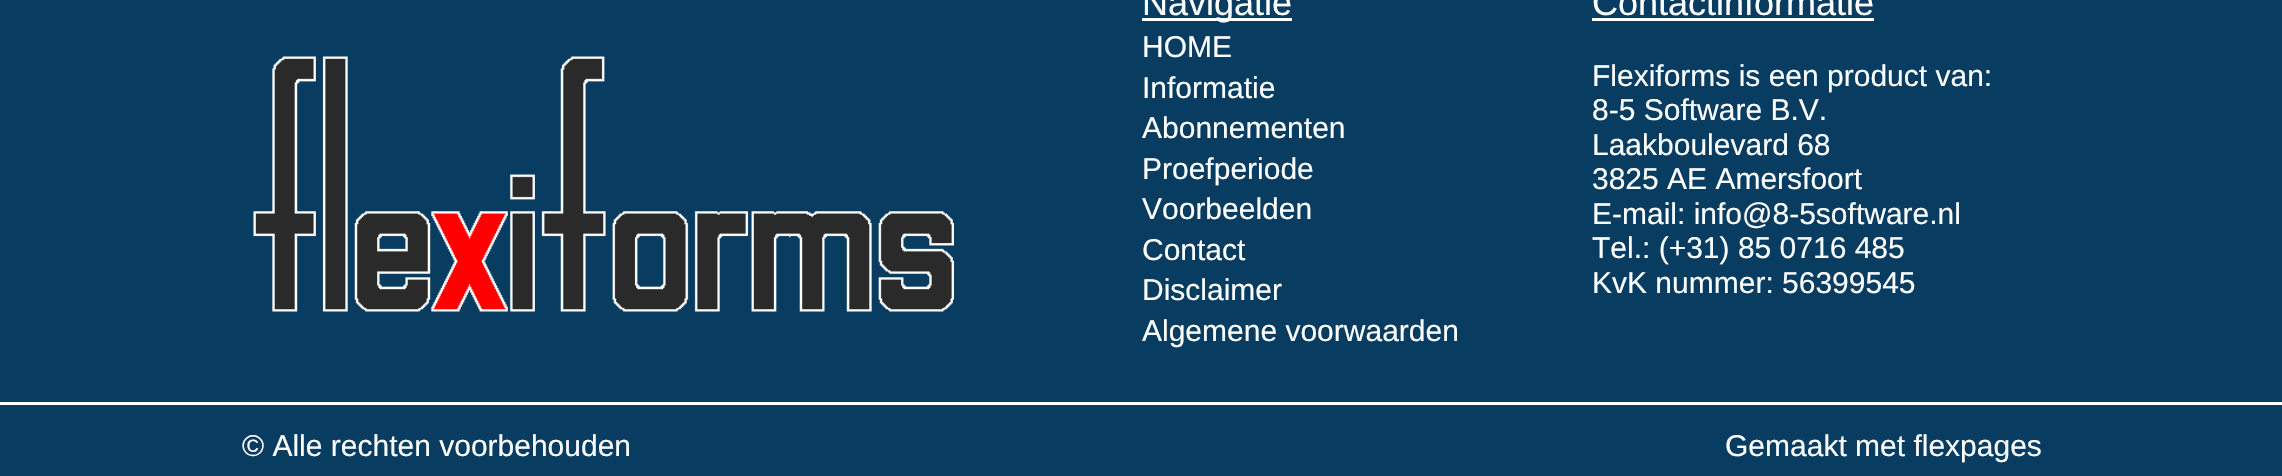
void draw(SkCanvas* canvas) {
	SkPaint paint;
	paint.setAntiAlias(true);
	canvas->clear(0xff083c61);
	canvas->drawImageRect(SkImages::DeferredFromEncodedData(SkData::MakeFromFileName("img1.png")), SkRect::MakeXYWH(253, 56, 701, 256), SkSamplingOptions());
	paint.setColor(0xffffffff);
	canvas->drawRect(SkRect::MakeXYWH(1142, 18, 150, 3), paint);
	SkFont f1(fontMgr->matchFamilyStyle("Liberation Sans", SkFontStyle::Normal()), 36);
	f1.setSubpixel(true);
	canvas->drawString("Navigatie", 1142, 15, f1, paint);
	SkFont f2(fontMgr->matchFamilyStyle("Liberation Sans", SkFontStyle::Normal()), 30);
	f2.setSubpixel(true);
	canvas->drawString("HOME", 1142, 57, f2, paint);
	canvas->drawString("Informatie", 1142, 98, f2, paint);
	canvas->drawString("Abonnementen", 1142, 138, f2, paint);
	canvas->drawString("Proefperiode", 1142, 179, f2, paint);
	canvas->drawString("Voorbeelden", 1142, 219, f2, paint);
	canvas->drawString("Contact", 1142, 260, f2, paint);
	canvas->drawString("Disclaimer", 1142, 300, f2, paint);
	canvas->drawString("Algemene voorwaarden", 1142, 341, f2, paint);
	canvas->drawString("Contactinformatie", 1592, 15, f1, paint);
	canvas->drawRect(SkRect::MakeXYWH(1592, 18, 282, 3), paint);
	canvas->drawString("Flexiforms is een product van:", 1592, 86, f2, paint);
	canvas->drawString("8-5 Software B.V.", 1592, 120, f2, paint);
	canvas->drawString("Laakboulevard 68", 1592, 155, f2, paint);
	canvas->drawString("3825 AE Amersfoort", 1592, 189, f2, paint);
	canvas->drawString("E-mail: info@8-5software.nl", 1592, 224, f2, paint);
	canvas->drawString("Tel.: (+31) 85 0716 485", 1592, 258, f2, paint);
	canvas->drawString("KvK nummer: 56399545", 1592, 293, f2, paint);
	canvas->drawRect(SkRect::MakeXYWH(0, 402, 2282, 3), paint);
	canvas->drawString("© Alle rechten voorbehouden", 242, 456, f2, paint);
	canvas->drawString("Gemaakt met flexpages", 1725, 456, f2, paint);
}
